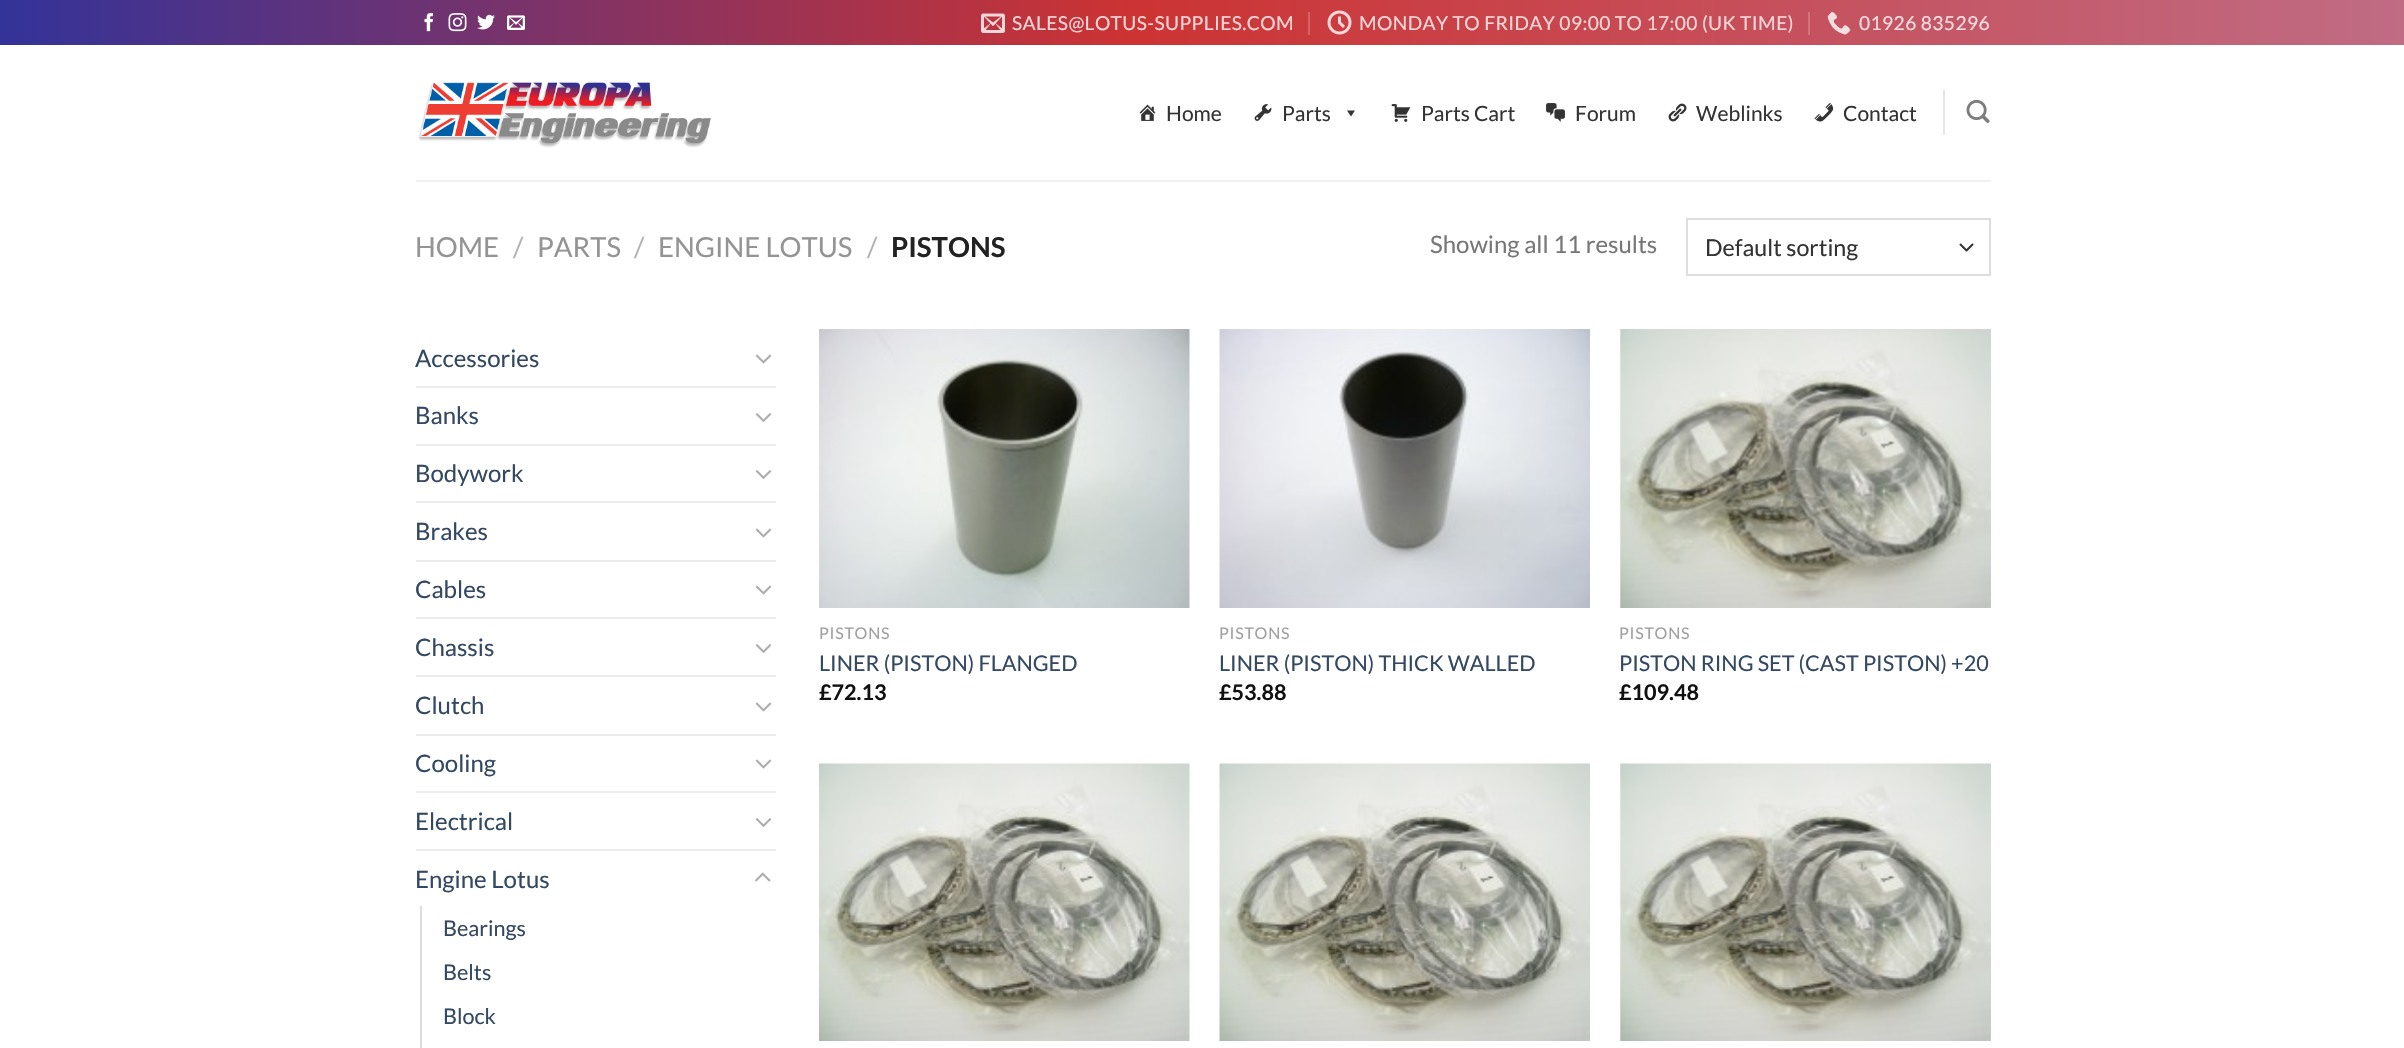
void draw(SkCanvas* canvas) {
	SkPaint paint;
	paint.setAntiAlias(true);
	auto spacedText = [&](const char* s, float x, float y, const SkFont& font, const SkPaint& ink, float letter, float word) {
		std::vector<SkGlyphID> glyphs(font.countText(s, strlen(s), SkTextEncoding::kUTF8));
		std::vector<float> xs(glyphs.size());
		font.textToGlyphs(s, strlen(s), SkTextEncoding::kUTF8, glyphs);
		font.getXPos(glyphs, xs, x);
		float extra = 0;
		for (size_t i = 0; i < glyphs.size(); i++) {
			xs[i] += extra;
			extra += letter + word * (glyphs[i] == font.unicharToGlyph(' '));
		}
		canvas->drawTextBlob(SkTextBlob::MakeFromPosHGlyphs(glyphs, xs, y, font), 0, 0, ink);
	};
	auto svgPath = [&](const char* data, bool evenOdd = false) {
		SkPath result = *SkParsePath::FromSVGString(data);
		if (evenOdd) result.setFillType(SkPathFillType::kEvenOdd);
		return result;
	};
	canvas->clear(0xffffffff);
	{
		const SkColor colors[] = {0xff333399, 0xffcc3333, 0xffc06c84};
		const float stops[] = {0, 0.47, 1};
		const SkPoint ends[] = {{0, 23}, {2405, 22}};
		paint.setShader(SkGradientShader::MakeLinear(ends, colors, stops, 3, SkTileMode::kClamp));
		paint.setAlpha(255);
	}
	canvas->drawRect(SkRect::MakeXYWH(0, 0, 2404, 45), paint);
	canvas->drawImageRect(SkImages::DeferredFromEncodedData(SkData::MakeFromFileName("img1.png")), SkRect::MakeXYWH(424, 13, 9, 19), SkSamplingOptions());
	canvas->drawImageRect(SkImages::DeferredFromEncodedData(SkData::MakeFromFileName("img2.png")), SkRect::MakeXYWH(448, 13, 19, 19), SkSamplingOptions());
	canvas->drawImageRect(SkImages::DeferredFromEncodedData(SkData::MakeFromFileName("img3.png")), SkRect::MakeXYWH(477, 14, 18, 16), SkSamplingOptions());
	canvas->drawImageRect(SkImages::DeferredFromEncodedData(SkData::MakeFromFileName("img4.png")), SkRect::MakeXYWH(507, 15, 18, 15), SkSamplingOptions());
	canvas->drawImageRect(SkImages::DeferredFromEncodedData(SkData::MakeFromFileName("img5.png")), SkRect::MakeXYWH(981, 13, 24, 20), SkSamplingOptions());
	SkFont f1(fontMgr->matchFamilyStyle("Lato", SkFontStyle::Normal()), 19.2);
	f1.setSubpixel(true);
	paint.setShader(nullptr);
	paint.setColor(0xfff4d7d7);
	spacedText("SALES@LOTUS-SUPPLIES.COM", 1012, 30, f1, paint, 0.4, 0);
	paint.setColor(0xffd56265);
	canvas->drawRect(SkRect::MakeXYWH(1308, 12, 2, 23), paint);
	canvas->drawImageRect(SkImages::DeferredFromEncodedData(SkData::MakeFromFileName("img6.png")), SkRect::MakeXYWH(1327, 10, 25, 25), SkSamplingOptions());
	paint.setColor(0xfff4d7d7);
	spacedText("MONDAY TO FRIDAY 09:00 TO 17:00 (UK TIME)", 1359, 30, f1, paint, 0.4, 0);
	paint.setColor(0xffd1747e);
	canvas->drawRect(SkRect::MakeXYWH(1808, 12, 2, 23), paint);
	canvas->drawImageRect(SkImages::DeferredFromEncodedData(SkData::MakeFromFileName("img7.png")), SkRect::MakeXYWH(1827, 12, 24, 23), SkSamplingOptions());
	paint.setColor(0xfff3dde0);
	spacedText("01926 835296", 1859, 30, f1, paint, 0.4, 0);
	canvas->drawImageRect(SkImages::DeferredFromEncodedData(SkData::MakeFromFileName("img8.png")), SkRect::MakeXYWH(418, 82, 293, 66), SkSamplingOptions());
	canvas->drawImageRect(SkImages::DeferredFromEncodedData(SkData::MakeFromFileName("img9.png")), SkRect::MakeXYWH(1139, 104, 17, 17), SkSamplingOptions());
	SkFont f2(fontMgr->matchFamilyStyle("Lato", SkFontStyle::Normal()), 21);
	f2.setSubpixel(true);
	paint.setColor(0xff333333);
	canvas->drawString("Home", 1166, 121, f2, paint);
	canvas->drawImageRect(SkImages::DeferredFromEncodedData(SkData::MakeFromFileName("img10.png")), SkRect::MakeXYWH(1254, 104, 18, 17), SkSamplingOptions());
	canvas->drawString("Parts", 1282, 121, f2, paint);
	canvas->drawPath(svgPath("M1355 110.5L1351 116.5L1347 110.5Z"), paint);
	canvas->drawImageRect(SkImages::DeferredFromEncodedData(SkData::MakeFromFileName("img11.png")), SkRect::MakeXYWH(1391, 104, 20, 18), SkSamplingOptions());
	canvas->drawString("Parts Cart", 1421, 121, f2, paint);
	canvas->drawImageRect(SkImages::DeferredFromEncodedData(SkData::MakeFromFileName("img12.png")), SkRect::MakeXYWH(1546, 103, 19, 19), SkSamplingOptions());
	canvas->drawString("Forum", 1575, 121, f2, paint);
	canvas->drawImageRect(SkImages::DeferredFromEncodedData(SkData::MakeFromFileName("img13.png")), SkRect::MakeXYWH(1668, 103, 19, 19), SkSamplingOptions());
	canvas->drawString("Weblinks", 1696, 121, f2, paint);
	canvas->drawImageRect(SkImages::DeferredFromEncodedData(SkData::MakeFromFileName("img14.png")), SkRect::MakeXYWH(1814, 103, 20, 19), SkSamplingOptions());
	canvas->drawString("Contact", 1843, 121, f2, paint);
	paint.setColor(0xffe6e6e6);
	canvas->drawRect(SkRect::MakeXYWH(1943, 90, 2, 45), paint);
	canvas->drawImageRect(SkImages::DeferredFromEncodedData(SkData::MakeFromFileName("img15.png")), SkRect::MakeXYWH(1966, 99, 24, 24), SkSamplingOptions());
	paint.setColor(0xfff1f1f1);
	canvas->drawRect(SkRect::MakeXYWH(416, 180, 1575, 2), paint);
	SkFont f3(fontMgr->matchFamilyStyle("Lato", SkFontStyle::Normal()), 27.5);
	f3.setSubpixel(true);
	paint.setColor(0xff949494);
	canvas->drawString("HOME", 415, 257, f3, paint);
	paint.setColor(0xffb2b2b2);
	canvas->drawString("/", 513, 257, f3, paint);
	paint.setColor(0xff949494);
	canvas->drawString("PARTS", 537, 257, f3, paint);
	paint.setColor(0xffb2b2b2);
	canvas->drawString("/", 634, 257, f3, paint);
	paint.setColor(0xff949494);
	canvas->drawString("ENGINE LOTUS", 658, 257, f3, paint);
	paint.setColor(0xffb2b2b2);
	canvas->drawString("/", 867, 257, f3, paint);
	SkFont f4(fontMgr->matchFamilyStyle("Lato", SkFontStyle::Bold()), 27.5);
	f4.setSubpixel(true);
	paint.setColor(0xff222222);
	canvas->drawString("PISTONS", 891, 257, f4, paint);
	SkFont f5(fontMgr->matchFamilyStyle("Lato", SkFontStyle::Normal()), 24);
	f5.setSubpixel(true);
	paint.setColor(0xff777777);
	canvas->drawString("Showing all 11 results", 1430, 253, f5, paint);
	paint.setStroke(true);
	paint.setStrokeWidth(2);
	paint.setStrokeCap(SkPaint::kRound_Cap);
	paint.setStrokeJoin(SkPaint::kRound_Join);
	paint.setColor(0xff333333);
	canvas->drawPath(svgPath("M1960.5 244.5L1966.5 250.5L1972.5 244.5"), paint);
	paint.setStrokeCap(SkPaint::kButt_Cap);
	paint.setStrokeJoin(SkPaint::kMiter_Join);
	paint.setColor(0xffdddddd);
	canvas->drawRect(SkRect::MakeXYWH(1687, 219, 303, 56), paint);
	SkFont f6(fontMgr->matchFamilyStyle("Lato", SkFontStyle::Normal()), 23.25);
	f6.setSubpixel(true);
	paint.setStroke(false);
	paint.setColor(0xff333333);
	canvas->drawString("Default sorting", 1705, 256, f6, paint);
	paint.setColor(0xff334862);
	canvas->drawString("Accessories", 415, 367, f5, paint);
	canvas->drawImageRect(SkImages::DeferredFromEncodedData(SkData::MakeFromFileName("img16.png")), SkRect::MakeXYWH(755, 354, 17, 10), SkSamplingOptions());
	paint.setColor(0xffececec);
	canvas->drawRect(SkRect::MakeXYWH(416, 386, 360, 2), paint);
	paint.setColor(0xff334862);
	canvas->drawString("Banks", 415, 424, f5, paint);
	canvas->drawImageRect(SkImages::DeferredFromEncodedData(SkData::MakeFromFileName("img17.png")), SkRect::MakeXYWH(755, 413, 17, 9), SkSamplingOptions());
	paint.setColor(0xffececec);
	canvas->drawRect(SkRect::MakeXYWH(416, 444, 360, 2), paint);
	paint.setColor(0xff334862);
	canvas->drawString("Bodywork", 415, 482, f5, paint);
	canvas->drawImageRect(SkImages::DeferredFromEncodedData(SkData::MakeFromFileName("img17.png")), SkRect::MakeXYWH(755, 470, 17, 9), SkSamplingOptions());
	paint.setColor(0xffececec);
	canvas->drawRect(SkRect::MakeXYWH(416, 501, 360, 2), paint);
	paint.setColor(0xff334862);
	canvas->drawString("Brakes", 415, 540, f5, paint);
	canvas->drawImageRect(SkImages::DeferredFromEncodedData(SkData::MakeFromFileName("img16.png")), SkRect::MakeXYWH(755, 528, 17, 10), SkSamplingOptions());
	paint.setColor(0xffececec);
	canvas->drawRect(SkRect::MakeXYWH(416, 560, 360, 2), paint);
	paint.setColor(0xff334862);
	canvas->drawString("Cables", 415, 598, f5, paint);
	canvas->drawImageRect(SkImages::DeferredFromEncodedData(SkData::MakeFromFileName("img16.png")), SkRect::MakeXYWH(755, 585, 17, 10), SkSamplingOptions());
	paint.setColor(0xffececec);
	canvas->drawRect(SkRect::MakeXYWH(416, 617, 360, 2), paint);
	paint.setColor(0xff334862);
	canvas->drawString("Chassis", 415, 656, f5, paint);
	canvas->drawImageRect(SkImages::DeferredFromEncodedData(SkData::MakeFromFileName("img17.png")), SkRect::MakeXYWH(755, 644, 17, 9), SkSamplingOptions());
	paint.setColor(0xffececec);
	canvas->drawRect(SkRect::MakeXYWH(416, 675, 360, 2), paint);
	paint.setColor(0xff334862);
	canvas->drawString("Clutch", 415, 714, f5, paint);
	canvas->drawImageRect(SkImages::DeferredFromEncodedData(SkData::MakeFromFileName("img16.png")), SkRect::MakeXYWH(755, 702, 17, 10), SkSamplingOptions());
	paint.setColor(0xffececec);
	canvas->drawRect(SkRect::MakeXYWH(416, 734, 360, 2), paint);
	paint.setColor(0xff334862);
	canvas->drawString("Cooling", 415, 772, f5, paint);
	canvas->drawImageRect(SkImages::DeferredFromEncodedData(SkData::MakeFromFileName("img16.png")), SkRect::MakeXYWH(755, 759, 17, 10), SkSamplingOptions());
	paint.setColor(0xffececec);
	canvas->drawRect(SkRect::MakeXYWH(416, 791, 360, 2), paint);
	paint.setColor(0xff334862);
	canvas->drawString("Electrical", 415, 830, f5, paint);
	canvas->drawImageRect(SkImages::DeferredFromEncodedData(SkData::MakeFromFileName("img17.png")), SkRect::MakeXYWH(755, 818, 17, 9), SkSamplingOptions());
	paint.setColor(0xffececec);
	canvas->drawRect(SkRect::MakeXYWH(416, 849, 360, 2), paint);
	paint.setColor(0xff334862);
	canvas->drawString("Engine Lotus", 415, 888, f5, paint);
	canvas->drawImageRect(SkImages::DeferredFromEncodedData(SkData::MakeFromFileName("img18.png")), SkRect::MakeXYWH(755, 872, 16, 10), SkSamplingOptions());
	paint.setColor(0xffdddddd);
	canvas->drawRect(SkRect::MakeXYWH(420, 906, 2, 142), paint);
	SkFont f7(fontMgr->matchFamilyStyle("Lato", SkFontStyle::Normal()), 21.6);
	f7.setSubpixel(true);
	paint.setColor(0xff334862);
	canvas->drawString("Bearings", 443, 936, f7, paint);
	canvas->drawString("Belts", 443, 980, f7, paint);
	canvas->drawString("Block", 443, 1024, f7, paint);
	canvas->drawImageRect(SkImages::DeferredFromEncodedData(SkData::MakeFromFileName("img19.png")), SkRect::MakeXYWH(819, 329, 371, 279), SkSamplingOptions());
	SkFont f8(fontMgr->matchFamilyStyle("Lato", SkFontStyle::Normal()), 16);
	f8.setSubpixel(true);
	paint.setColor(0xffa0a0a0);
	spacedText("PISTONS", 819, 639, f8, paint, 0.75, 0);
	paint.setColor(0xff334862);
	canvas->drawString("LINER (PISTON) FLANGED", 819, 671, f7, paint);
	SkFont f9(fontMgr->matchFamilyStyle("Lato", SkFontStyle::Bold()), 21.6);
	f9.setSubpixel(true);
	paint.setColor(0xff111111);
	canvas->drawString("£72.13", 819, 700, f9, paint);
	canvas->drawImageRect(SkImages::DeferredFromEncodedData(SkData::MakeFromFileName("img20.png")), SkRect::MakeXYWH(1219, 329, 371, 279), SkSamplingOptions());
	paint.setColor(0xffa0a0a0);
	spacedText("PISTONS", 1219, 639, f8, paint, 0.75, 0);
	paint.setColor(0xff334862);
	canvas->drawString("LINER (PISTON) THICK WALLED", 1219, 671, f7, paint);
	paint.setColor(0xff111111);
	canvas->drawString("£53.88", 1219, 700, f9, paint);
	canvas->drawImageRect(SkImages::DeferredFromEncodedData(SkData::MakeFromFileName("img21.png")), SkRect::MakeXYWH(1620, 329, 371, 279), SkSamplingOptions());
	paint.setColor(0xffa0a0a0);
	spacedText("PISTONS", 1619, 639, f8, paint, 0.75, 0);
	paint.setColor(0xff334862);
	canvas->drawString("PISTON RING SET (CAST PISTON) +20", 1619, 671, f7, paint);
	paint.setColor(0xff111111);
	canvas->drawString("£109.48", 1619, 700, f9, paint);
	canvas->drawImageRect(SkImages::DeferredFromEncodedData(SkData::MakeFromFileName("img22.png")), SkRect::MakeXYWH(819, 763, 371, 278), SkSamplingOptions());
	canvas->drawImageRect(SkImages::DeferredFromEncodedData(SkData::MakeFromFileName("img23.png")), SkRect::MakeXYWH(1219, 763, 371, 278), SkSamplingOptions());
	canvas->drawImageRect(SkImages::DeferredFromEncodedData(SkData::MakeFromFileName("img24.png")), SkRect::MakeXYWH(1620, 763, 371, 278), SkSamplingOptions());
}
